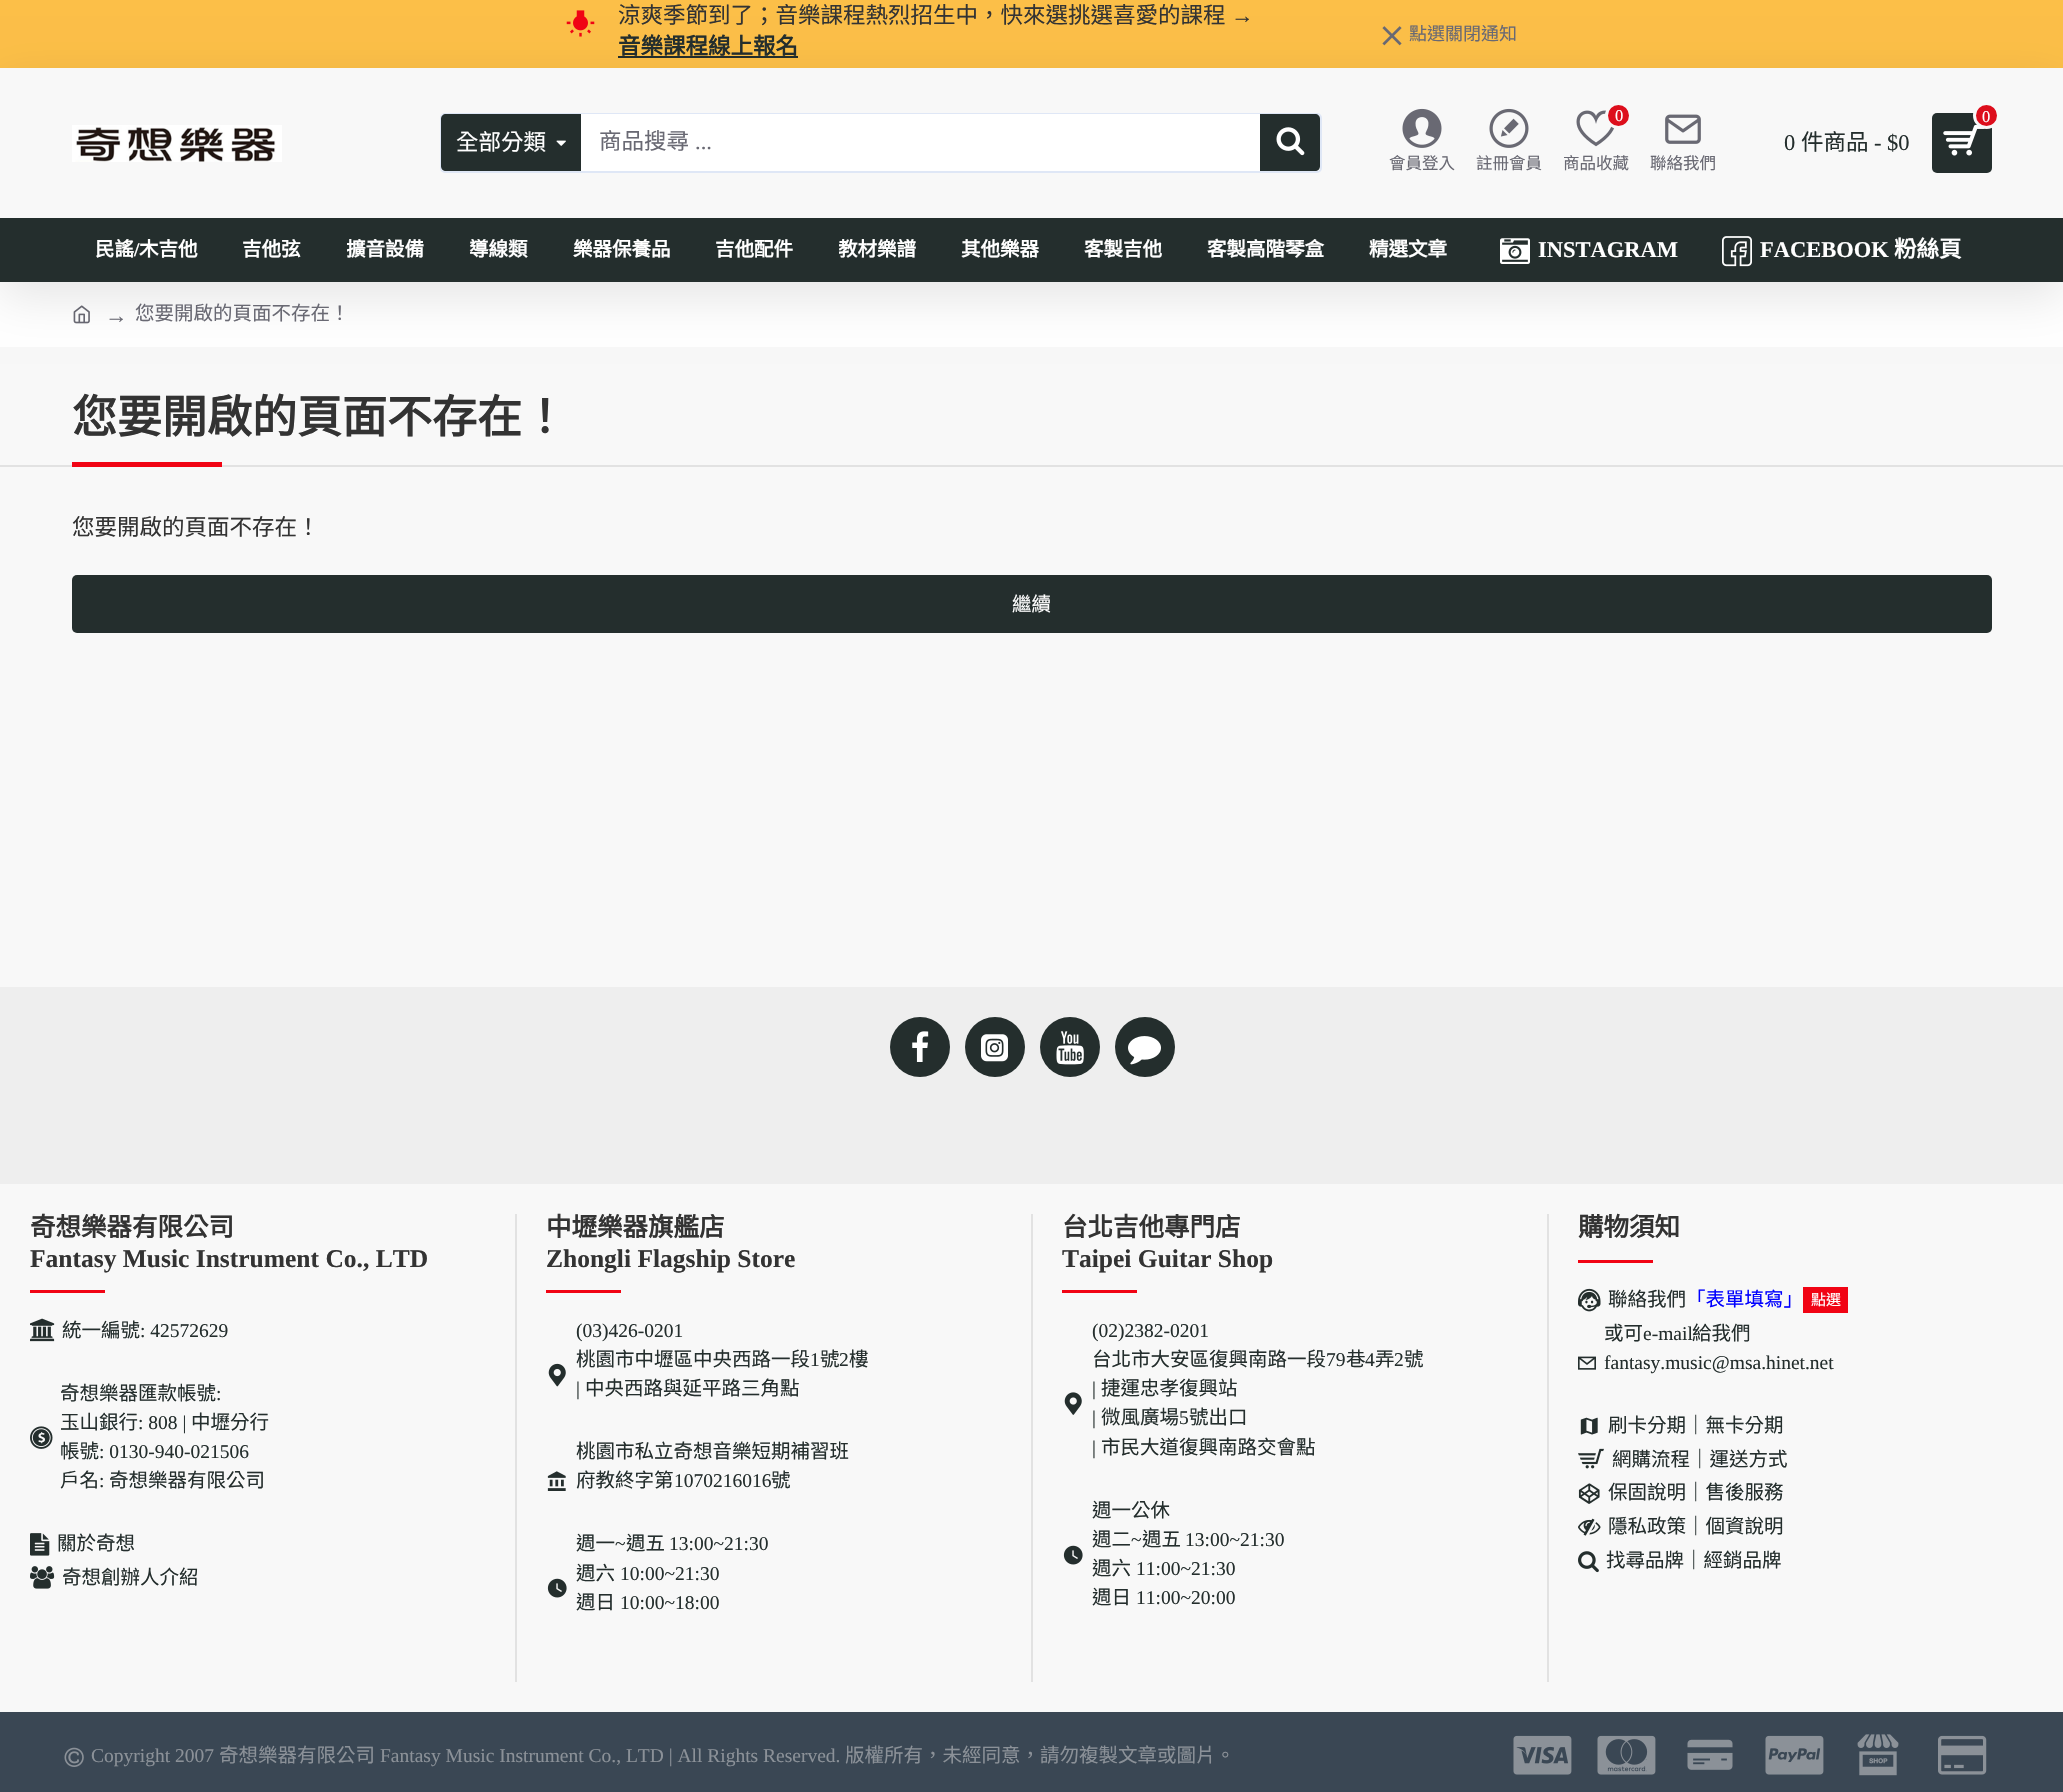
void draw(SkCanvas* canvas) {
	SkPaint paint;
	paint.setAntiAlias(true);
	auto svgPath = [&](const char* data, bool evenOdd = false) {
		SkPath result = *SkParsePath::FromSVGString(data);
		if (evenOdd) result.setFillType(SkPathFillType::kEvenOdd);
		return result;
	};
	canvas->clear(0xfff8f8f8);
	paint.setColor(0xfffcbf48);
	canvas->drawRect(SkRect::MakeXYWH(0, 0, 2063, 68), paint);
	canvas->drawImageRect(SkImages::DeferredFromEncodedData(SkData::MakeFromFileName("img1.png")), SkRect::MakeXYWH(566, 10, 29, 27), SkSamplingOptions());
	SkFont f1(fontMgr->matchFamilyStyle("Noto Sans CJK TC", SkFontStyle::Normal()), 22.5);
	f1.setSubpixel(true);
	paint.setColor(0xff333333);
	canvas->drawString("涼爽季節到了；音樂課程熱烈招生中，快來選挑選喜愛的課程", 618, 23, f1, paint);
	SkFont f2(fontMgr->matchFamilyStyle("Liberation Serif", SkFontStyle::Normal()), 22.5);
	f2.setSubpixel(true);
	canvas->drawString("→", 1231, 23, f2, paint);
	SkFont f3(fontMgr->matchFamilyStyle("Noto Sans CJK TC", SkFontStyle::Bold()), 22.5);
	f3.setSubpixel(true);
	paint.setColor(0xff242e2d);
	canvas->drawString("音樂課程線上報名", 618, 54, f3, paint);
	canvas->drawRect(SkRect::MakeXYWH(618, 56, 180, 2), paint);
	canvas->drawImageRect(SkImages::DeferredFromEncodedData(SkData::MakeFromFileName("img2.png")), SkRect::MakeXYWH(1382, 26, 20, 20), SkSamplingOptions());
	SkFont f4(fontMgr->matchFamilyStyle("Noto Sans CJK TC", SkFontStyle::Normal()), 18);
	f4.setSubpixel(true);
	paint.setColor(0xff696973);
	canvas->drawString("點選關閉通知", 1409, 40, f4, paint);
	paint.setColor(0xffffffff);
	canvas->drawRect(SkRect::MakeXYWH(0, 282, 2063, 65), paint);
	canvas->drawImageRect(SkImages::DeferredFromEncodedData(SkData::MakeFromFileName("img13.png")), SkRect::MakeXYWH(73, 305, 17, 19), SkSamplingOptions());
	canvas->save();
	canvas->clipPath(svgPath("M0 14H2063V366H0ZM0 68H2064V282H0Z", true), true);
	paint.setColor(0x1a000000);
	paint.setMaskFilter(SkMaskFilter::MakeBlur(kNormal_SkBlurStyle, 22.5));
	canvas->drawRect(SkRect::MakeXYWH(0, 83, 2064, 214), paint);
	paint.setMaskFilter(nullptr);
	canvas->restore();
	canvas->drawImageRect(SkImages::DeferredFromEncodedData(SkData::MakeFromFileName("img3.png")), SkRect::MakeXYWH(72, 125, 210, 37), SkSamplingOptions());
	paint.setStroke(true);
	paint.setStrokeWidth(2);
	paint.setColor(0xffdfe7f6);
	canvas->drawRoundRect(SkRect::MakeXYWH(441, 114, 880, 58), 4, 4, paint);
	paint.setStroke(false);
	paint.setColor(0xff242e2d);
	canvas->drawPath(svgPath("M446 114H581V171H446C443 171 441 169 441 166V119C441 116 443 114 446 114Z"), paint);
	paint.setColor(0xffffffff);
	canvas->drawString("全部分類", 456, 150, f1, paint);
	canvas->drawImageRect(SkImages::DeferredFromEncodedData(SkData::MakeFromFileName("img4.png")), SkRect::MakeXYWH(556, 140, 10, 6), SkSamplingOptions());
	canvas->drawRect(SkRect::MakeXYWH(581, 114, 679, 57), paint);
	paint.setColor(0xff696973);
	canvas->drawString("商品搜尋", 599, 149, f1, paint);
	canvas->drawString("...", 695, 149, f2, paint);
	paint.setColor(0xff242e2d);
	canvas->drawPath(svgPath("M1260 114H1315C1318 114 1320 116 1320 119V166C1320 169 1318 171 1315 171H1260Z"), paint);
	canvas->drawImageRect(SkImages::DeferredFromEncodedData(SkData::MakeFromFileName("img5.png")), SkRect::MakeXYWH(1276, 127, 29, 29), SkSamplingOptions());
	canvas->drawImageRect(SkImages::DeferredFromEncodedData(SkData::MakeFromFileName("img6.png")), SkRect::MakeXYWH(1402, 108, 40, 40), SkSamplingOptions());
	SkFont f5(fontMgr->matchFamilyStyle("Noto Sans CJK TC", SkFontStyle::Normal()), 16.5);
	f5.setSubpixel(true);
	paint.setColor(0xff696973);
	canvas->drawString("會員登入", 1389, 169, f5, paint);
	canvas->drawImageRect(SkImages::DeferredFromEncodedData(SkData::MakeFromFileName("img7.png")), SkRect::MakeXYWH(1489, 108, 40, 40), SkSamplingOptions());
	canvas->drawString("註冊會員", 1476, 169, f5, paint);
	canvas->drawImageRect(SkImages::DeferredFromEncodedData(SkData::MakeFromFileName("img8.png")), SkRect::MakeXYWH(1576, 110, 39, 37), SkSamplingOptions());
	paint.setColor(0xffdd0e1c);
	canvas->drawCircle(1618.5, 115.5, 12, paint);
	paint.setStroke(true);
	paint.setStrokeWidth(3);
	paint.setColor(0xfff8f8f8);
	canvas->drawCircle(1618.5, 115.5, 12, paint);
	SkFont f6(fontMgr->matchFamilyStyle("Liberation Serif", SkFontStyle::Normal()), 16.5);
	f6.setSubpixel(true);
	paint.setStroke(false);
	paint.setColor(0xffffffff);
	canvas->drawString("0", 1615, 121, f6, paint);
	paint.setColor(0xff696973);
	canvas->drawString("商品收藏", 1563, 169, f5, paint);
	canvas->drawImageRect(SkImages::DeferredFromEncodedData(SkData::MakeFromFileName("img9.png")), SkRect::MakeXYWH(1665, 114, 36, 30), SkSamplingOptions());
	canvas->drawString("聯絡我們", 1650, 169, f5, paint);
	paint.setColor(0xff242e2d);
	canvas->drawRoundRect(SkRect::MakeXYWH(1932, 113, 60, 60), 5, 5, paint);
	canvas->drawImageRect(SkImages::DeferredFromEncodedData(SkData::MakeFromFileName("img10.png")), SkRect::MakeXYWH(1943, 124, 42, 32), SkSamplingOptions());
	paint.setColor(0xffdd0e1c);
	canvas->drawCircle(1986.5, 115.5, 12, paint);
	paint.setStroke(true);
	paint.setColor(0xfff8f8f8);
	canvas->drawCircle(1986.5, 115.5, 12, paint);
	paint.setStroke(false);
	paint.setColor(0xffffffff);
	canvas->drawString("0", 1982, 122, f6, paint);
	paint.setColor(0xff242e2d);
	canvas->drawString("0", 1784, 150, f2, paint);
	canvas->drawString("件商品", 1801, 150, f1, paint);
	canvas->drawString("- $0", 1874, 150, f2, paint);
	canvas->drawRect(SkRect::MakeXYWH(0, 218, 2063, 64), paint);
	SkFont f7(fontMgr->matchFamilyStyle("Noto Sans CJK TC", SkFontStyle::Bold()), 19.5);
	f7.setSubpixel(true);
	paint.setColor(0xffffffff);
	canvas->drawString("民謠", 95, 256, f7, paint);
	SkFont f8(fontMgr->matchFamilyStyle("Liberation Serif", SkFontStyle::Bold()), 19.5);
	f8.setSubpixel(true);
	canvas->drawString("/", 134, 256, f8, paint);
	canvas->drawString("木吉他", 139, 256, f7, paint);
	canvas->drawString("吉他弦", 242, 256, f7, paint);
	canvas->save();
	canvas->clipRect(SkRect::MakeXYWH(347, 236, 78, 28));
	canvas->drawString("擴音設備", 346, 256, f7, paint);
	canvas->restore();
	canvas->drawString("導線類", 469, 256, f7, paint);
	canvas->drawString("樂器保養品", 573, 256, f7, paint);
	canvas->drawString("吉他配件", 715, 256, f7, paint);
	canvas->save();
	canvas->clipRect(SkRect::MakeXYWH(839, 236, 78, 28));
	canvas->drawString("教材樂譜", 838, 256, f7, paint);
	canvas->restore();
	canvas->drawString("其他樂器", 961, 256, f7, paint);
	canvas->drawString("客製吉他", 1084, 256, f7, paint);
	canvas->drawString("客製高階琴盒", 1207, 256, f7, paint);
	canvas->drawString("精選文章", 1369, 256, f7, paint);
	canvas->drawImageRect(SkImages::DeferredFromEncodedData(SkData::MakeFromFileName("img11.png")), SkRect::MakeXYWH(1500, 238, 30, 26), SkSamplingOptions());
	SkFont f9(fontMgr->matchFamilyStyle("Liberation Serif", SkFontStyle::Bold()), 22.5);
	f9.setSubpixel(true);
	canvas->drawString("INSTAGRAM", 1538, 257, f9, paint);
	canvas->drawImageRect(SkImages::DeferredFromEncodedData(SkData::MakeFromFileName("img12.png")), SkRect::MakeXYWH(1722, 236, 30, 31), SkSamplingOptions());
	canvas->drawString("FACEBOOK", 1760, 257, f9, paint);
	canvas->drawString("粉絲頁", 1894, 257, f3, paint);
	paint.setColor(0xff696973);
	canvas->drawString("→", 105, 323, f2, paint);
	SkFont f10(fontMgr->matchFamilyStyle("Noto Sans CJK TC", SkFontStyle::Normal()), 19.5);
	f10.setSubpixel(true);
	canvas->drawString("您要開啟的頁面不存在！", 135, 320, f10, paint);
	paint.setColor(0xffe2e2e2);
	canvas->drawRect(SkRect::MakeXYWH(0, 465, 2063, 2), paint);
	SkFont f11(fontMgr->matchFamilyStyle("Noto Sans CJK TC", SkFontStyle::Bold()), 45);
	f11.setSubpixel(true);
	paint.setColor(0xff333333);
	canvas->drawString("您要開啟的頁面不存在！", 72, 433, f11, paint);
	paint.setColor(0xfff10414);
	canvas->drawRect(SkRect::MakeXYWH(72, 462, 150, 5), paint);
	paint.setColor(0xff333333);
	canvas->drawString("您要開啟的頁面不存在！", 72, 535, f1, paint);
	paint.setColor(0xff242e2d);
	canvas->drawRoundRect(SkRect::MakeXYWH(72, 575, 1920, 58), 5, 5, paint);
	paint.setColor(0xffffffff);
	canvas->drawString("繼續", 1012, 611, f10, paint);
	paint.setColor(0xffeeeeee);
	canvas->drawRect(SkRect::MakeXYWH(0, 987, 2063, 197), paint);
	paint.setColor(0xff242e2d);
	canvas->drawCircle(920, 1047, 30, paint);
	canvas->drawImageRect(SkImages::DeferredFromEncodedData(SkData::MakeFromFileName("img14.png")), SkRect::MakeXYWH(912, 1031, 17, 31), SkSamplingOptions());
	canvas->drawCircle(995, 1047, 30, paint);
	canvas->drawImageRect(SkImages::DeferredFromEncodedData(SkData::MakeFromFileName("img15.png")), SkRect::MakeXYWH(981, 1034, 27, 28), SkSamplingOptions());
	canvas->drawCircle(1070, 1047, 30, paint);
	canvas->drawImageRect(SkImages::DeferredFromEncodedData(SkData::MakeFromFileName("img16.png")), SkRect::MakeXYWH(1056, 1031, 28, 34), SkSamplingOptions());
	canvas->drawCircle(1145, 1047, 30, paint);
	canvas->drawImageRect(SkImages::DeferredFromEncodedData(SkData::MakeFromFileName("img17.png")), SkRect::MakeXYWH(1128, 1036, 33, 29), SkSamplingOptions());
	paint.setColor(0xffe2e2e2);
	canvas->drawRect(SkRect::MakeXYWH(515, 1214, 2, 468), paint);
	SkFont f12(fontMgr->matchFamilyStyle("Noto Sans CJK TC", SkFontStyle::Bold()), 25.5);
	f12.setSubpixel(true);
	paint.setColor(0xff333333);
	canvas->drawString("奇想樂器有限公司", 30, 1236, f12, paint);
	SkFont f13(fontMgr->matchFamilyStyle("Liberation Serif", SkFontStyle::Bold()), 25.5);
	f13.setSubpixel(true);
	canvas->drawString("Fantasy Music Instrument Co., LTD", 30, 1267, f13, paint);
	paint.setColor(0xfff10414);
	canvas->drawRect(SkRect::MakeXYWH(30, 1290, 75, 3), paint);
	canvas->drawImageRect(SkImages::DeferredFromEncodedData(SkData::MakeFromFileName("img18.png")), SkRect::MakeXYWH(30, 1318, 25, 24), SkSamplingOptions());
	paint.setColor(0xff242e2d);
	canvas->drawString("統一編號", 62, 1337, f10, paint);
	SkFont f14(fontMgr->matchFamilyStyle("Liberation Serif", SkFontStyle::Normal()), 19.5);
	f14.setSubpixel(true);
	canvas->drawString(": 42572629", 140, 1337, f14, paint);
	canvas->drawImageRect(SkImages::DeferredFromEncodedData(SkData::MakeFromFileName("img19.png")), SkRect::MakeXYWH(30, 1426, 23, 23), SkSamplingOptions());
	canvas->drawString("奇想樂器匯款帳號", 60, 1400, f10, paint);
	canvas->drawString(":", 216, 1400, f14, paint);
	canvas->drawString("玉山銀行", 60, 1429, f10, paint);
	canvas->drawString(": 808 |", 138, 1429, f14, paint);
	canvas->drawString("中壢分行", 191, 1429, f10, paint);
	canvas->drawString("帳號", 60, 1458, f10, paint);
	canvas->drawString(": 0130-940-021506", 99, 1458, f14, paint);
	canvas->drawString("戶名", 60, 1487, f10, paint);
	canvas->drawString(":", 99, 1487, f14, paint);
	canvas->drawString("奇想樂器有限公司", 109, 1487, f10, paint);
	canvas->drawImageRect(SkImages::DeferredFromEncodedData(SkData::MakeFromFileName("img20.png")), SkRect::MakeXYWH(30, 1533, 20, 23), SkSamplingOptions());
	canvas->drawString("關於奇想", 57, 1550, f10, paint);
	canvas->drawImageRect(SkImages::DeferredFromEncodedData(SkData::MakeFromFileName("img21.png")), SkRect::MakeXYWH(30, 1566, 25, 23), SkSamplingOptions());
	canvas->drawString("奇想創辦人介紹", 62, 1584, f10, paint);
	paint.setColor(0xffe2e2e2);
	canvas->drawRect(SkRect::MakeXYWH(1031, 1214, 2, 468), paint);
	paint.setColor(0xff333333);
	canvas->drawString("中壢樂器旗艦店", 546, 1236, f12, paint);
	canvas->drawString("Zhongli Flagship Store", 546, 1267, f13, paint);
	paint.setColor(0xfff10414);
	canvas->drawRect(SkRect::MakeXYWH(546, 1290, 75, 3), paint);
	canvas->drawImageRect(SkImages::DeferredFromEncodedData(SkData::MakeFromFileName("img22.png")), SkRect::MakeXYWH(548, 1363, 18, 24), SkSamplingOptions());
	paint.setColor(0xff242e2d);
	canvas->drawString("(03)426-0201", 576, 1337, f14, paint);
	canvas->drawString("桃園市中壢區中央西路一段", 576, 1366, f10, paint);
	canvas->drawString("1", 810, 1366, f14, paint);
	canvas->drawString("號", 820, 1366, f10, paint);
	canvas->drawString("2", 839, 1366, f14, paint);
	canvas->drawString("樓", 849, 1366, f10, paint);
	canvas->drawString("|", 576, 1395, f14, paint);
	canvas->drawString("中央西路與延平路三角點", 585, 1395, f10, paint);
	canvas->drawImageRect(SkImages::DeferredFromEncodedData(SkData::MakeFromFileName("img23.png")), SkRect::MakeXYWH(547, 1471, 19, 20), SkSamplingOptions());
	canvas->drawString("桃園市私立奇想音樂短期補習班", 576, 1458, f10, paint);
	canvas->drawString("府教終字第", 576, 1487, f10, paint);
	canvas->drawString("1070216016", 674, 1487, f14, paint);
	canvas->drawString("號", 771, 1487, f10, paint);
	canvas->drawImageRect(SkImages::DeferredFromEncodedData(SkData::MakeFromFileName("img24.png")), SkRect::MakeXYWH(547, 1578, 20, 20), SkSamplingOptions());
	canvas->drawString("週一", 576, 1550, f10, paint);
	canvas->drawString("~", 615, 1550, f14, paint);
	canvas->drawString("週五", 626, 1550, f10, paint);
	canvas->drawString("13:00~21:30", 669, 1550, f14, paint);
	canvas->drawString("週六", 576, 1580, f10, paint);
	canvas->drawString("10:00~21:30", 620, 1580, f14, paint);
	canvas->drawString("週日", 576, 1609, f10, paint);
	canvas->drawString("10:00~18:00", 620, 1609, f14, paint);
	paint.setColor(0xffe2e2e2);
	canvas->drawRect(SkRect::MakeXYWH(1547, 1214, 2, 468), paint);
	paint.setColor(0xff333333);
	canvas->drawString("台北吉他專門店", 1062, 1236, f12, paint);
	canvas->drawString("Taipei Guitar Shop", 1062, 1267, f13, paint);
	paint.setColor(0xfff10414);
	canvas->drawRect(SkRect::MakeXYWH(1062, 1290, 75, 3), paint);
	canvas->drawImageRect(SkImages::DeferredFromEncodedData(SkData::MakeFromFileName("img25.png")), SkRect::MakeXYWH(1064, 1392, 18, 23), SkSamplingOptions());
	paint.setColor(0xff242e2d);
	canvas->drawString("(02)2382-0201", 1092, 1337, f14, paint);
	canvas->drawString("台北市大安區復興南路一段", 1092, 1366, f10, paint);
	canvas->drawString("79", 1326, 1366, f14, paint);
	canvas->drawString("巷", 1346, 1366, f10, paint);
	canvas->drawString("4", 1365, 1366, f14, paint);
	canvas->drawString("弄", 1375, 1366, f10, paint);
	canvas->drawString("2", 1394, 1366, f14, paint);
	canvas->drawString("號", 1404, 1366, f10, paint);
	canvas->drawString("|", 1092, 1395, f14, paint);
	canvas->drawString("捷運忠孝復興站", 1101, 1395, f10, paint);
	canvas->drawString("|", 1092, 1424, f14, paint);
	canvas->drawString("微風廣場", 1101, 1424, f10, paint);
	canvas->drawString("5", 1179, 1424, f14, paint);
	canvas->drawString("號出口", 1189, 1424, f10, paint);
	canvas->drawString("|", 1092, 1454, f14, paint);
	canvas->drawString("市民大道復興南路交會點", 1101, 1454, f10, paint);
	canvas->drawImageRect(SkImages::DeferredFromEncodedData(SkData::MakeFromFileName("img24.png")), SkRect::MakeXYWH(1063, 1545, 20, 20), SkSamplingOptions());
	canvas->drawString("週一公休", 1092, 1517, f10, paint);
	canvas->drawString("週二", 1092, 1546, f10, paint);
	canvas->drawString("~", 1131, 1546, f14, paint);
	canvas->drawString("週五", 1142, 1546, f10, paint);
	canvas->drawString("13:00~21:30", 1185, 1546, f14, paint);
	canvas->drawString("週六", 1092, 1575, f10, paint);
	canvas->drawString("11:00~21:30", 1136, 1575, f14, paint);
	canvas->drawString("週日", 1092, 1604, f10, paint);
	canvas->drawString("11:00~20:00", 1136, 1604, f14, paint);
	paint.setColor(0xff333333);
	canvas->drawString("購物須知", 1578, 1236, f12, paint);
	paint.setColor(0xfff10414);
	canvas->drawRect(SkRect::MakeXYWH(1578, 1260, 75, 3), paint);
	canvas->drawImageRect(SkImages::DeferredFromEncodedData(SkData::MakeFromFileName("img26.png")), SkRect::MakeXYWH(1578, 1288, 23, 24), SkSamplingOptions());
	paint.setColor(0xff242e2d);
	canvas->drawString("聯絡我們", 1608, 1306, f10, paint);
	paint.setColor(0xff0000ff);
	canvas->drawString("「表單填寫」", 1686, 1306, f10, paint);
	paint.setColor(0xfff10414);
	canvas->drawRect(SkRect::MakeXYWH(1803, 1287, 45, 26), paint);
	SkFont f15(fontMgr->matchFamilyStyle("Noto Sans CJK TC", SkFontStyle::Normal()), 15);
	f15.setSubpixel(true);
	paint.setColor(0xffffffff);
	canvas->drawString("點選", 1811, 1305, f15, paint);
	canvas->drawImageRect(SkImages::DeferredFromEncodedData(SkData::MakeFromFileName("img27.png")), SkRect::MakeXYWH(1578, 1356, 18, 14), SkSamplingOptions());
	paint.setColor(0xff242e2d);
	canvas->drawString("或可", 1604, 1340, f10, paint);
	canvas->drawString("e-mail", 1643, 1340, f14, paint);
	canvas->drawString("給我們", 1692, 1340, f10, paint);
	canvas->drawString("fantasy.music@msa.hinet.net", 1604, 1369, f14, paint);
	canvas->drawImageRect(SkImages::DeferredFromEncodedData(SkData::MakeFromFileName("img28.png")), SkRect::MakeXYWH(1580, 1417, 18, 18), SkSamplingOptions());
	canvas->drawString("刷卡分期｜無卡分期", 1608, 1432, f10, paint);
	canvas->drawImageRect(SkImages::DeferredFromEncodedData(SkData::MakeFromFileName("img29.png")), SkRect::MakeXYWH(1578, 1448, 26, 21), SkSamplingOptions());
	canvas->drawString("網購流程｜運送方式", 1612, 1466, f10, paint);
	canvas->drawImageRect(SkImages::DeferredFromEncodedData(SkData::MakeFromFileName("img30.png")), SkRect::MakeXYWH(1578, 1483, 22, 21), SkSamplingOptions());
	canvas->drawString("保固說明｜售後服務", 1608, 1499, f10, paint);
	canvas->drawImageRect(SkImages::DeferredFromEncodedData(SkData::MakeFromFileName("img31.png")), SkRect::MakeXYWH(1578, 1518, 23, 18), SkSamplingOptions());
	canvas->drawString("隱私政策｜個資說明", 1608, 1533, f10, paint);
	canvas->drawImageRect(SkImages::DeferredFromEncodedData(SkData::MakeFromFileName("img32.png")), SkRect::MakeXYWH(1578, 1551, 21, 22), SkSamplingOptions());
	canvas->drawString("找尋品牌｜經銷品牌", 1606, 1567, f10, paint);
	paint.setColor(0xff3a4754);
	canvas->drawRect(SkRect::MakeXYWH(0, 1712, 2063, 80), paint);
	canvas->drawImageRect(SkImages::DeferredFromEncodedData(SkData::MakeFromFileName("img33.png")), SkRect::MakeXYWH(64, 1747, 20, 20), SkSamplingOptions());
	paint.setColor(0xff8b9198);
	canvas->drawString("Copyright 2007", 91, 1762, f14, paint);
	canvas->drawString("奇想樂器有限公司", 219, 1762, f10, paint);
	canvas->drawString("Fantasy Music Instrument Co., LTD | All Rights Reserved.", 380, 1762, f14, paint);
	canvas->drawString("版權所有，未經同意，請勿複製文章或圖片。", 845, 1762, f10, paint);
	canvas->drawImageRect(SkImages::DeferredFromEncodedData(SkData::MakeFromFileName("img34.png")), SkRect::MakeXYWH(1513, 1735, 59, 40), SkSamplingOptions());
	canvas->drawImageRect(SkImages::DeferredFromEncodedData(SkData::MakeFromFileName("img35.png")), SkRect::MakeXYWH(1597, 1735, 59, 40), SkSamplingOptions());
	canvas->drawImageRect(SkImages::DeferredFromEncodedData(SkData::MakeFromFileName("img36.png")), SkRect::MakeXYWH(1687, 1739, 46, 31), SkSamplingOptions());
	canvas->drawImageRect(SkImages::DeferredFromEncodedData(SkData::MakeFromFileName("img37.png")), SkRect::MakeXYWH(1765, 1735, 59, 40), SkSamplingOptions());
	canvas->drawImageRect(SkImages::DeferredFromEncodedData(SkData::MakeFromFileName("img38.png")), SkRect::MakeXYWH(1857, 1734, 42, 42), SkSamplingOptions());
	canvas->drawImageRect(SkImages::DeferredFromEncodedData(SkData::MakeFromFileName("img39.png")), SkRect::MakeXYWH(1938, 1735, 49, 40), SkSamplingOptions());
}
